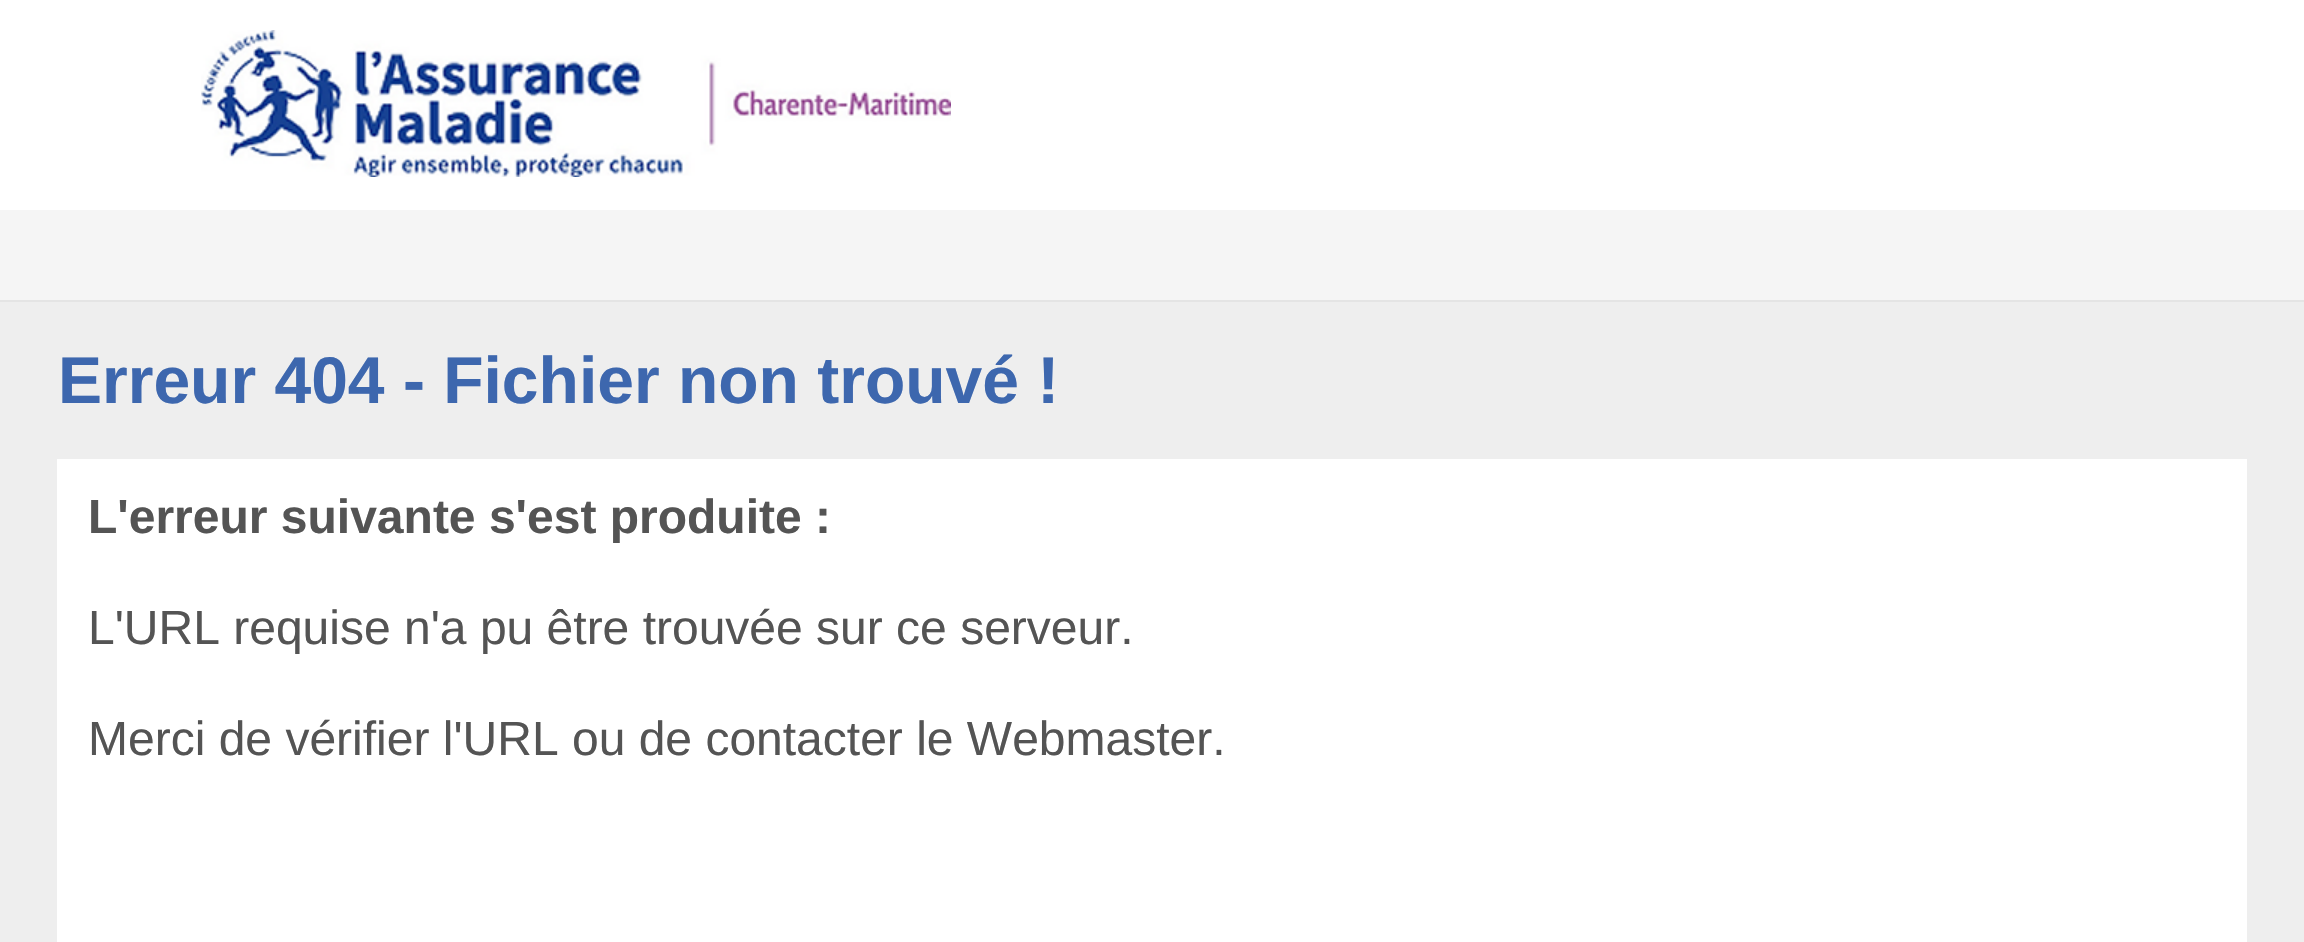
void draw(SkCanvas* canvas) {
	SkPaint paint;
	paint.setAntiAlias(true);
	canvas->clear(0xffeeeeee);
	paint.setColor(0xffe4e4e4);
	canvas->drawRect(SkRect::MakeXYWH(0, 300, 2304, 2), paint);
	paint.setColor(0xffffffff);
	canvas->drawRect(SkRect::MakeXYWH(0, 0, 2304, 210), paint);
	canvas->drawImageRect(SkImages::DeferredFromEncodedData(SkData::MakeFromFileName("img1.png")), SkRect::MakeXYWH(201, 30, 750, 147), SkSamplingOptions());
	paint.setColor(0xfff5f5f5);
	canvas->drawRect(SkRect::MakeXYWH(0, 210, 2304, 90), paint);
	SkFont f1(fontMgr->matchFamilyStyle("Liberation Sans", SkFontStyle::Bold()), 66);
	f1.setSubpixel(true);
	paint.setColor(0xff3d67ae);
	canvas->drawString("Erreur 404 - Fichier non trouvé !", 58, 403, f1, paint);
	paint.setColor(0xffffffff);
	canvas->drawRect(SkRect::MakeXYWH(57, 459, 2190, 483), paint);
	SkFont f2(fontMgr->matchFamilyStyle("Liberation Sans", SkFontStyle::Bold()), 48);
	f2.setSubpixel(true);
	paint.setColor(0xff545454);
	canvas->drawString("L'erreur suivante s'est produite :", 88, 533, f2, paint);
	SkFont f3(fontMgr->matchFamilyStyle("Liberation Sans", SkFontStyle::Normal()), 48);
	f3.setSubpixel(true);
	canvas->drawString("L'URL requise n'a pu être trouvée sur ce serveur.", 88, 644, f3, paint);
	canvas->drawString("Merci de vérifier l'URL ou de contacter le Webmaster.", 88, 755, f3, paint);
}
